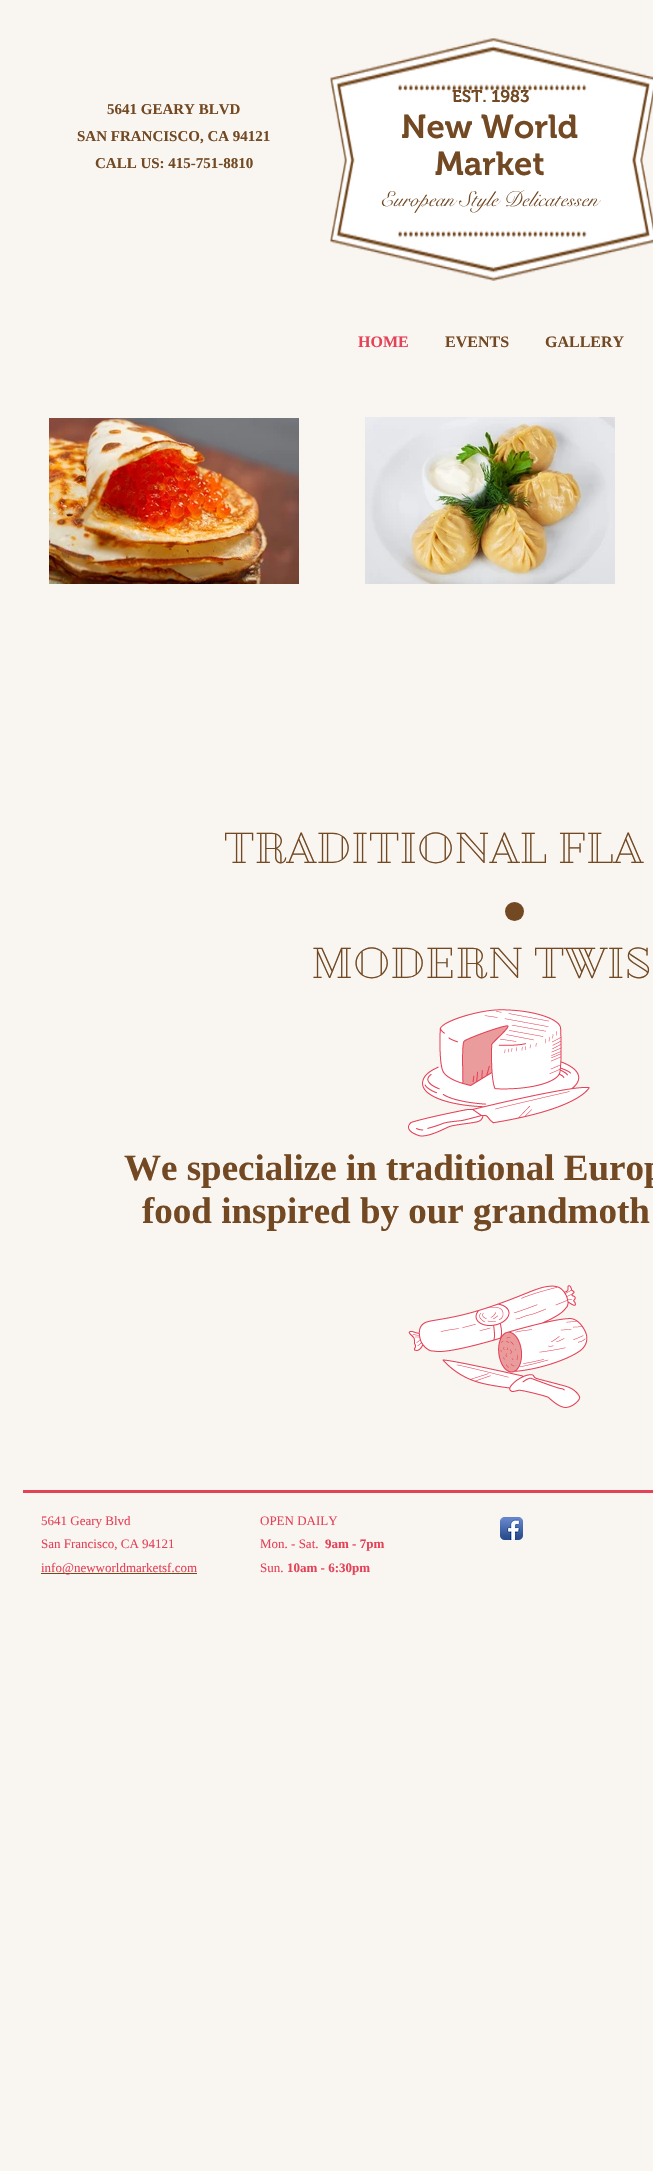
void draw(SkCanvas* canvas) {
	SkPaint paint;
	paint.setAntiAlias(true);
	canvas->clear(0xfff9f5f1);
	canvas->drawImageRect(SkImages::DeferredFromEncodedData(SkData::MakeFromFileName("img1.png")), SkRect::MakeXYWH(330, 38, 323, 243), SkSamplingOptions());
	SkFont f1(fontMgr->matchFamilyStyle("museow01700", SkFontStyle(600, SkFontStyle::kNormal_Width, SkFontStyle::kUpright_Slant)), 17);
	f1.setSubpixel(true);
	paint.setColor(0xff724923);
	canvas->drawString("EST. 1983", 452, 102, f1, paint);
	SkFont f2(fontMgr->matchFamilyStyle("Liberation Serif", SkFontStyle::Bold()), 15);
	f2.setSubpixel(true);
	canvas->drawString("5641 GEARY BLVD", 107, 114, f2, paint);
	canvas->drawString("SAN FRANCISCO, CA 94121", 77, 141, f2, paint);
	canvas->drawString("CALL US: 415-751-8810", 95, 168, f2, paint);
	SkFont f3(fontMgr->matchFamilyStyle("museow01700", SkFontStyle(600, SkFontStyle::kNormal_Width, SkFontStyle::kUpright_Slant)), 33);
	f3.setSubpixel(true);
	canvas->drawString("New World", 401, 138, f3, paint);
	canvas->drawString("Market", 435, 175, f3, paint);
	SkFont f4(fontMgr->matchFamilyStyle("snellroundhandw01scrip", SkFontStyle::Normal()), 21);
	f4.setSubpixel(true);
	canvas->drawString("European Style Delicatessen", 380, 206, f4, paint);
	SkFont f5(fontMgr->matchFamilyStyle("Liberation Serif", SkFontStyle::Bold()), 16);
	f5.setSubpixel(true);
	paint.setColor(0xffe44257);
	canvas->drawString("HOME", 358, 347, f5, paint);
	paint.setColor(0xff724923);
	canvas->drawString("EVENTS", 445, 347, f5, paint);
	canvas->drawString("GALLERY", 545, 347, f5, paint);
	canvas->drawImageRect(SkImages::DeferredFromEncodedData(SkData::MakeFromFileName("img2.png")), SkRect::MakeXYWH(49, 418, 250, 166), SkSamplingOptions());
	canvas->drawImageRect(SkImages::DeferredFromEncodedData(SkData::MakeFromFileName("img3.png")), SkRect::MakeXYWH(365, 417, 250, 167), SkSamplingOptions());
	SkFont f6(fontMgr->matchFamilyStyle("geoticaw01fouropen", SkFontStyle::Bold()), 40);
	f6.setSubpixel(true);
	canvas->drawString("TRADITIONAL FLA", 224, 863, f6, paint);
	canvas->drawCircle(514.5, 911.5, 9.5, paint);
	canvas->drawString("MODERN TWIS", 311, 978, f6, paint);
	canvas->drawImageRect(SkImages::DeferredFromEncodedData(SkData::MakeFromFileName("img4.png")), SkRect::MakeXYWH(408, 1009, 182, 128), SkSamplingOptions());
	SkFont f7(fontMgr->matchFamilyStyle("Liberation Serif", SkFontStyle::Bold()), 37);
	f7.setSubpixel(true);
	canvas->drawString("We specialize in traditional Europ", 124, 1180, f7, paint);
	canvas->drawString("food inspired by our grandmoth", 142, 1223, f7, paint);
	canvas->drawImageRect(SkImages::DeferredFromEncodedData(SkData::MakeFromFileName("img5.png")), SkRect::MakeXYWH(408, 1285, 180, 123), SkSamplingOptions());
	paint.setColor(0xffe44257);
	canvas->drawRect(SkRect::MakeXYWH(23, 1490, 630, 3), paint);
	SkFont f8(fontMgr->matchFamilyStyle("Liberation Serif", SkFontStyle::Normal()), 13);
	f8.setSubpixel(true);
	canvas->drawString("5641 Geary Blvd", 41, 1525, f8, paint);
	canvas->drawString("San Francisco, CA 94121", 41, 1548, f8, paint);
	paint.setColor(0xff724923);
	canvas->drawRect(SkRect::MakeXYWH(41, 1573, 156, 1), paint);
	paint.setColor(0xffe44257);
	canvas->drawString("info@newworldmarketsf.com", 41, 1572, f8, paint);
	canvas->drawString("OPEN DAILY", 260, 1525, f8, paint);
	canvas->drawString("Mon. - Sat.", 260, 1548, f8, paint);
	SkFont f9(fontMgr->matchFamilyStyle("Liberation Serif", SkFontStyle::Bold()), 13);
	f9.setSubpixel(true);
	canvas->drawString("9am - 7pm", 325, 1548, f9, paint);
	canvas->drawString("Sun.", 260, 1572, f8, paint);
	canvas->drawString("10am - 6:30pm", 287, 1572, f9, paint);
	canvas->drawImageRect(SkImages::DeferredFromEncodedData(SkData::MakeFromFileName("img6.png")), SkRect::MakeXYWH(500, 1517, 23, 23), SkSamplingOptions());
}
